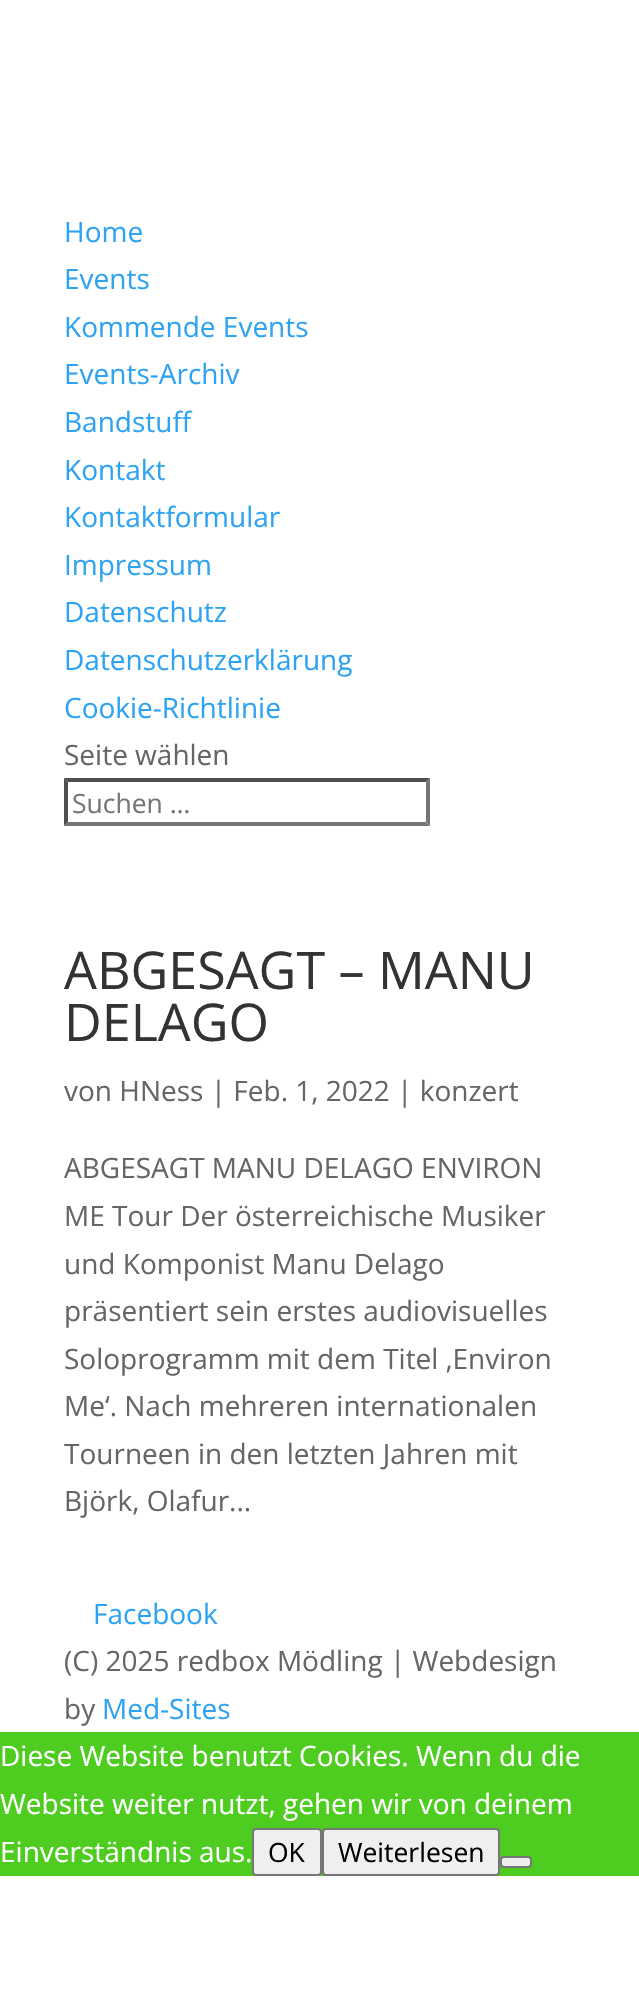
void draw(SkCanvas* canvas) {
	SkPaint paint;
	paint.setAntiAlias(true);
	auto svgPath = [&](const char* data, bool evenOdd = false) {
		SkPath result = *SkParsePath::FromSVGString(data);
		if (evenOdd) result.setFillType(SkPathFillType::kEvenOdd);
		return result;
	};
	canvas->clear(0xffffffff);
	SkFont f1(fontMgr->matchFamilyStyle("Open Sans", SkFontStyle::Normal()), 28);
	f1.setSubpixel(true);
	paint.setColor(0xff2ea3f2);
	canvas->drawString("Home", 64, 242, f1, paint);
	canvas->drawString("Events", 64, 289, f1, paint);
	canvas->drawString("Kommende Events", 64, 337, f1, paint);
	canvas->drawString("Events-Archiv", 64, 384, f1, paint);
	canvas->drawString("Bandstuff", 64, 432, f1, paint);
	canvas->drawString("Kontakt", 64, 480, f1, paint);
	canvas->drawString("Kontaktformular", 64, 527, f1, paint);
	canvas->drawString("Impressum", 64, 575, f1, paint);
	canvas->drawString("Datenschutz", 64, 622, f1, paint);
	canvas->drawString("Datenschutzerklärung", 64, 670, f1, paint);
	canvas->drawString("Cookie-Richtlinie", 64, 718, f1, paint);
	paint.setColor(0xff666666);
	canvas->drawString("Seite wählen", 64, 765, f1, paint);
	paint.setColor(0xff4f4f4f);
	canvas->drawPath(svgPath("M64 778H430L426 782H68Z"), paint);
	paint.setColor(0xff767676);
	canvas->drawPath(svgPath("M430 778V826L426 822V782Z"), paint);
	canvas->drawPath(svgPath("M430 826H64L68 822H426Z"), paint);
	paint.setColor(0xff4f4f4f);
	canvas->drawPath(svgPath("M64 826V778L68 782V822Z"), paint);
	SkFont f2(fontMgr->matchFamilyStyle("Open Sans", SkFontStyle::Normal()), 26.5);
	f2.setSubpixel(true);
	paint.setColor(0xff757575);
	canvas->drawString("Suchen …", 72, 813, f2, paint);
	SkFont f3(fontMgr->matchFamilyStyle("Open Sans", SkFontStyle::Normal()), 52);
	f3.setSubpixel(true);
	paint.setColor(0xff333333);
	canvas->drawString("ABGESAGT – MANU", 64, 989, f3, paint);
	canvas->drawString("DELAGO", 64, 1041, f3, paint);
	paint.setColor(0xff666666);
	canvas->drawString("von HNess | Feb. 1, 2022 | konzert", 64, 1101, f1, paint);
	canvas->drawString("ABGESAGT MANU DELAGO ENVIRON", 64, 1178, f1, paint);
	canvas->drawString("ME Tour Der österreichische Musiker", 64, 1226, f1, paint);
	canvas->drawString("und Komponist Manu Delago", 64, 1274, f1, paint);
	canvas->drawString("präsentiert sein erstes audiovisuelles", 64, 1321, f1, paint);
	canvas->drawString("Soloprogramm mit dem Titel ‚Environ", 64, 1369, f1, paint);
	canvas->drawString("Me‘. Nach mehreren internationalen", 64, 1416, f1, paint);
	canvas->drawString("Tourneen in den letzten Jahren mit", 64, 1464, f1, paint);
	canvas->drawString("Björk, Olafur...", 64, 1511, f1, paint);
	paint.setColor(0xff2ea3f2);
	canvas->drawString("Facebook", 93, 1624, f1, paint);
	paint.setColor(0xff666666);
	canvas->drawString("(C) 2025 redbox Mödling | Webdesign", 64, 1671, f1, paint);
	canvas->drawString("by", 64, 1719, f1, paint);
	paint.setColor(0xff2ea3f2);
	canvas->drawString("Med-Sites", 102, 1719, f1, paint);
	paint.setColor(0xff4ecc20);
	canvas->drawRect(SkRect::MakeXYWH(0, 1732, 639, 144), paint);
	paint.setColor(0xffffffff);
	canvas->drawString("Diese Website benutzt Cookies. Wenn du die", 0, 1766, f1, paint);
	canvas->drawString("Website weiter nutzt, gehen wir von deinem", 0, 1814, f1, paint);
	canvas->drawString("Einverständnis aus.", 0, 1862, f1, paint);
	paint.setColor(0xffefefef);
	canvas->drawRoundRect(SkRect::MakeXYWH(253, 1829, 68, 46), 3, 3, paint);
	paint.setStroke(true);
	paint.setStrokeWidth(2);
	paint.setColor(0xff767676);
	canvas->drawRoundRect(SkRect::MakeXYWH(253, 1829, 68, 46), 3, 3, paint);
	paint.setStroke(false);
	paint.setColor(0xff000000);
	canvas->drawString("OK", 268, 1862, f2, paint);
	paint.setColor(0xffefefef);
	canvas->drawRoundRect(SkRect::MakeXYWH(323, 1829, 176, 46), 3, 3, paint);
	paint.setStroke(true);
	paint.setColor(0xff767676);
	canvas->drawRoundRect(SkRect::MakeXYWH(323, 1829, 176, 46), 3, 3, paint);
	paint.setStroke(false);
	paint.setColor(0xff000000);
	canvas->drawString("Weiterlesen", 338, 1862, f2, paint);
	paint.setColor(0xffefefef);
	canvas->drawRoundRect(SkRect::MakeXYWH(501, 1857, 30, 10), 3, 3, paint);
	paint.setStroke(true);
	paint.setColor(0xff767676);
	canvas->drawRoundRect(SkRect::MakeXYWH(501, 1857, 30, 10), 3, 3, paint);
}
